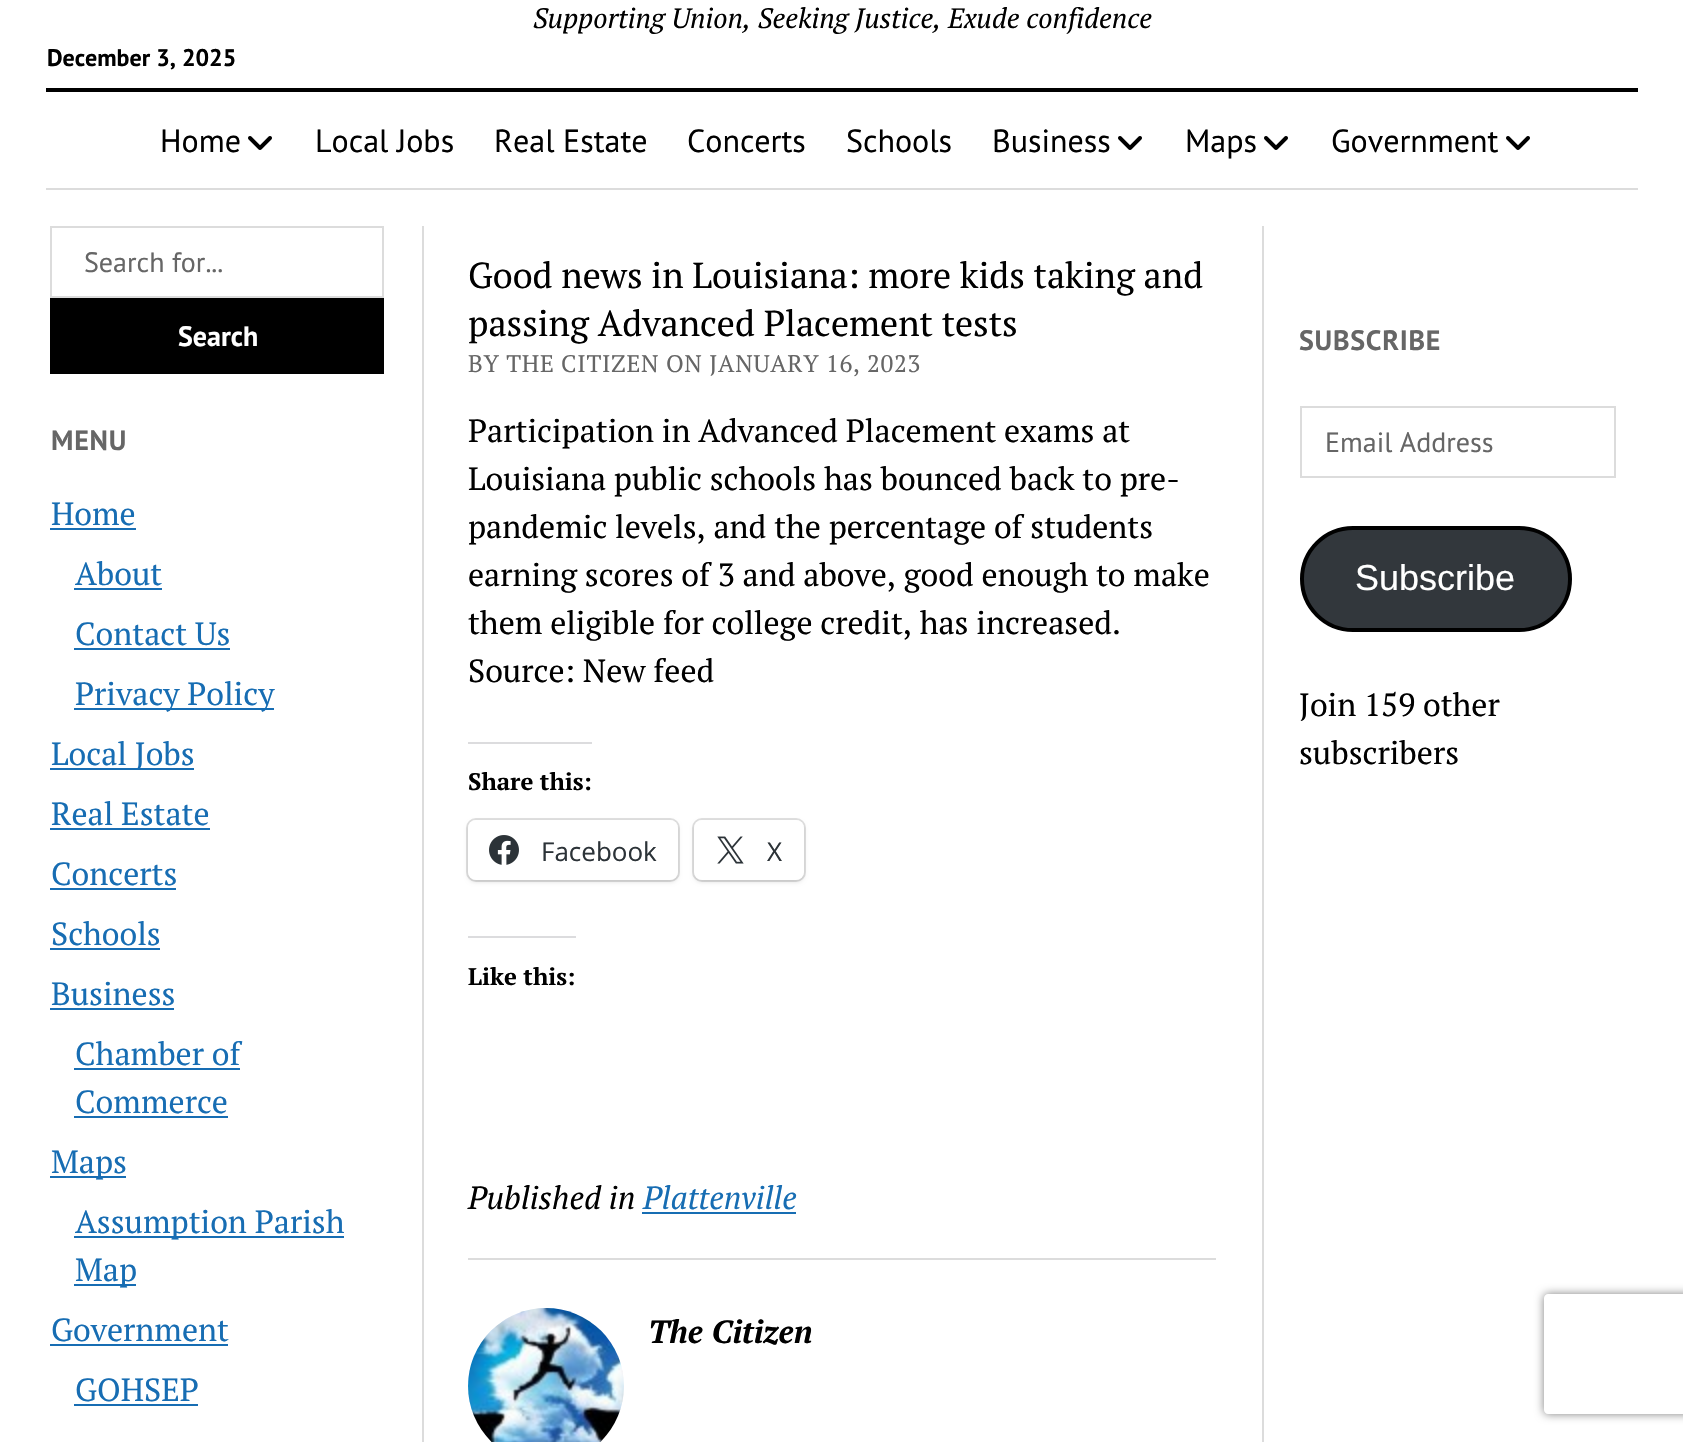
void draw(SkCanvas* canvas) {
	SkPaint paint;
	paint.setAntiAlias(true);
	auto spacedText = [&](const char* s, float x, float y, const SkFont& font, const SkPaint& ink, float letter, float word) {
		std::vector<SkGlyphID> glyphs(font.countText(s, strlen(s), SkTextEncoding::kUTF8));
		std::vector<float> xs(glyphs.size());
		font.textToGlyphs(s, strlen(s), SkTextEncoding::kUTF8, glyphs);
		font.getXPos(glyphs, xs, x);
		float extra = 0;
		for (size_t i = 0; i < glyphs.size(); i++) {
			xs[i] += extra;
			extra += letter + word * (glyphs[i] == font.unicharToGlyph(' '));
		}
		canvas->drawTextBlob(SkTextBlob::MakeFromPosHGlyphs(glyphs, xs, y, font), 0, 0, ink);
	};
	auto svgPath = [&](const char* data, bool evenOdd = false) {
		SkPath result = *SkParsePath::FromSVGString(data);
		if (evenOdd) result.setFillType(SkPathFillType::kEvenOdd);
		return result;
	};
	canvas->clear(0xffffffff);
	SkFont f1(fontMgr->matchFamilyStyle("PT Serif", SkFontStyle::Italic()), 28);
	f1.setSubpixel(true);
	paint.setColor(0xff000000);
	canvas->drawString("Supporting Union, Seeking Justice, Exude confidence", 533, 28, f1, paint);
	SkFont f2(fontMgr->matchFamilyStyle("PT Sans", SkFontStyle::Bold()), 24);
	f2.setSubpixel(true);
	canvas->drawString("December 3, 2025", 47, 66, f2, paint);
	canvas->drawRect(SkRect::MakeXYWH(46, 88, 1592, 4), paint);
	paint.setColor(0xffdcdcdc);
	canvas->drawRect(SkRect::MakeXYWH(46, 188, 1592, 2), paint);
	SkFont f3(fontMgr->matchFamilyStyle("PT Sans", SkFontStyle::Normal()), 32);
	f3.setSubpixel(true);
	paint.setColor(0xff000000);
	canvas->drawString("Home", 160, 152, f3, paint);
	canvas->drawImageRect(SkImages::DeferredFromEncodedData(SkData::MakeFromFileName("img1.png")), SkRect::MakeXYWH(248, 136, 24, 14), SkSamplingOptions());
	canvas->drawString("Local Jobs", 315, 152, f3, paint);
	canvas->drawString("Real Estate", 494, 152, f3, paint);
	canvas->drawString("Concerts", 687, 152, f3, paint);
	canvas->drawString("Schools", 846, 152, f3, paint);
	canvas->drawString("Business", 992, 152, f3, paint);
	canvas->drawImageRect(SkImages::DeferredFromEncodedData(SkData::MakeFromFileName("img1.png")), SkRect::MakeXYWH(1118, 136, 24, 14), SkSamplingOptions());
	canvas->drawString("Maps", 1185, 152, f3, paint);
	canvas->drawImageRect(SkImages::DeferredFromEncodedData(SkData::MakeFromFileName("img1.png")), SkRect::MakeXYWH(1264, 136, 24, 14), SkSamplingOptions());
	canvas->drawString("Government", 1331, 152, f3, paint);
	canvas->drawImageRect(SkImages::DeferredFromEncodedData(SkData::MakeFromFileName("img1.png")), SkRect::MakeXYWH(1506, 136, 24, 14), SkSamplingOptions());
	paint.setColor(0xffdcdcdc);
	canvas->drawRect(SkRect::MakeXYWH(422, 226, 2, 1216), paint);
	canvas->drawRect(SkRect::MakeXYWH(1262, 226, 2, 1216), paint);
	paint.setStroke(true);
	paint.setStrokeWidth(2);
	canvas->drawRect(SkRect::MakeXYWH(51, 227, 332, 70), paint);
	SkFont f4(fontMgr->matchFamilyStyle("PT Sans", SkFontStyle::Normal()), 28);
	f4.setSubpixel(true);
	paint.setStroke(false);
	paint.setColor(0xff666666);
	canvas->drawString("Search for...", 84, 272, f4, paint);
	paint.setColor(0xff000000);
	canvas->drawRect(SkRect::MakeXYWH(50, 298, 334, 76), paint);
	SkFont f5(fontMgr->matchFamilyStyle("PT Sans", SkFontStyle::Bold()), 28);
	f5.setSubpixel(true);
	paint.setColor(0xffffffff);
	canvas->drawString("Search", 178, 346, f5, paint);
	paint.setColor(0xff666666);
	spacedText("MENU", 51, 450, f5, paint, 0.75, 0);
	SkFont f6(fontMgr->matchFamilyStyle("PT Serif", SkFontStyle::Normal()), 32);
	f6.setSubpixel(true);
	paint.setColor(0xff176db3);
	canvas->drawString("Home", 51, 525, f6, paint);
	canvas->drawRect(SkRect::MakeXYWH(50, 528, 86, 2), paint);
	canvas->drawString("About", 75, 585, f6, paint);
	canvas->drawRect(SkRect::MakeXYWH(74, 588, 88, 2), paint);
	canvas->drawString("Contact Us", 75, 645, f6, paint);
	canvas->drawRect(SkRect::MakeXYWH(74, 648, 156, 2), paint);
	canvas->drawRect(SkRect::MakeXYWH(74, 708, 200, 2), paint);
	canvas->drawString("Privacy Policy", 75, 705, f6, paint);
	canvas->drawRect(SkRect::MakeXYWH(50, 768, 144, 2), paint);
	canvas->drawString("Local Jobs", 51, 765, f6, paint);
	canvas->drawString("Real Estate", 51, 825, f6, paint);
	canvas->drawRect(SkRect::MakeXYWH(50, 828, 160, 2), paint);
	canvas->drawString("Concerts", 51, 885, f6, paint);
	canvas->drawRect(SkRect::MakeXYWH(50, 888, 126, 2), paint);
	canvas->drawString("Schools", 51, 945, f6, paint);
	canvas->drawRect(SkRect::MakeXYWH(50, 948, 110, 2), paint);
	canvas->drawString("Business", 51, 1005, f6, paint);
	canvas->drawRect(SkRect::MakeXYWH(50, 1008, 124, 2), paint);
	canvas->drawString("Chamber of", 75, 1065, f6, paint);
	canvas->drawRect(SkRect::MakeXYWH(74, 1068, 166, 2), paint);
	canvas->drawString("Commerce", 75, 1113, f6, paint);
	canvas->drawRect(SkRect::MakeXYWH(74, 1116, 154, 2), paint);
	canvas->drawRect(SkRect::MakeXYWH(50, 1176, 76, 2), paint);
	canvas->drawString("Maps", 51, 1173, f6, paint);
	canvas->drawRect(SkRect::MakeXYWH(74, 1236, 270, 2), paint);
	canvas->drawString("Assumption Parish", 75, 1233, f6, paint);
	canvas->drawRect(SkRect::MakeXYWH(74, 1284, 62, 2), paint);
	canvas->drawString("Map", 75, 1281, f6, paint);
	canvas->drawString("Government", 51, 1341, f6, paint);
	canvas->drawRect(SkRect::MakeXYWH(50, 1344, 178, 2), paint);
	canvas->drawString("GOHSEP", 75, 1401, f6, paint);
	canvas->drawRect(SkRect::MakeXYWH(74, 1404, 124, 2), paint);
	SkFont f7(fontMgr->matchFamilyStyle("PT Serif", SkFontStyle::Normal()), 36);
	f7.setSubpixel(true);
	paint.setColor(0xff000000);
	canvas->drawString("Good news in Louisiana: more kids taking and", 468, 288, f7, paint);
	canvas->drawString("passing Advanced Placement tests", 468, 336, f7, paint);
	SkFont f8(fontMgr->matchFamilyStyle("PT Serif", SkFontStyle::Normal()), 24);
	f8.setSubpixel(true);
	paint.setColor(0xff666666);
	spacedText("BY THE CITIZEN ON JANUARY 16, 2023", 468, 372, f8, paint, 0.7, 0);
	paint.setColor(0xff000000);
	canvas->drawString("Participation in Advanced Placement exams at", 468, 442, f6, paint);
	canvas->drawString("Louisiana public schools has bounced back to pre-", 468, 490, f6, paint);
	canvas->drawString("pandemic levels, and the percentage of students", 468, 538, f6, paint);
	canvas->drawString("earning scores of 3 and above, good enough to make", 468, 586, f6, paint);
	canvas->drawString("them eligible for college credit, has increased.", 468, 634, f6, paint);
	canvas->drawString("Source: New feed", 468, 682, f6, paint);
	paint.setColor(0xffdcdcde);
	canvas->drawRect(SkRect::MakeXYWH(468, 742, 124, 2), paint);
	SkFont f9(fontMgr->matchFamilyStyle("PT Serif", SkFontStyle::Bold()), 24);
	f9.setSubpixel(true);
	paint.setColor(0xff000000);
	canvas->drawString("Share this:", 468, 790, f9, paint);
	paint.setStroke(true);
	paint.setColor(0xffe0e0e0);
	canvas->drawRoundRect(SkRect::MakeXYWH(467, 819, 212, 62), 9, 9, paint);
	paint.setStroke(false);
	paint.setColor(0x1f000000);
	paint.setMaskFilter(SkMaskFilter::MakeBlur(kNormal_SkBlurStyle, 2));
	canvas->drawRoundRect(SkRect::MakeXYWH(468, 822, 210, 60), 8, 8, paint);
	paint.setMaskFilter(nullptr);
	paint.setColor(0xffffffff);
	canvas->drawRoundRect(SkRect::MakeXYWH(468, 820, 210, 60), 8, 8, paint);
	canvas->drawImageRect(SkImages::DeferredFromEncodedData(SkData::MakeFromFileName("img2.png")), SkRect::MakeXYWH(489, 835, 30, 30), SkSamplingOptions());
	SkFont f10(fontMgr->matchFamilyStyle("Open Sans", SkFontStyle::Normal()), 26);
	f10.setSubpixel(true);
	paint.setColor(0xff2c3338);
	canvas->drawString("Facebook", 541, 861, f10, paint);
	paint.setStroke(true);
	paint.setColor(0xffe0e0e0);
	canvas->drawRoundRect(SkRect::MakeXYWH(693, 819, 112, 62), 9, 9, paint);
	paint.setStroke(false);
	paint.setColor(0x1f000000);
	paint.setMaskFilter(SkMaskFilter::MakeBlur(kNormal_SkBlurStyle, 2));
	canvas->drawRoundRect(SkRect::MakeXYWH(694, 822, 110, 60), 8, 8, paint);
	paint.setMaskFilter(nullptr);
	paint.setColor(0xffffffff);
	canvas->drawRoundRect(SkRect::MakeXYWH(694, 820, 110, 60), 8, 8, paint);
	canvas->drawImageRect(SkImages::DeferredFromEncodedData(SkData::MakeFromFileName("img3.png")), SkRect::MakeXYWH(717, 836, 27, 28), SkSamplingOptions());
	paint.setColor(0xff2c3338);
	canvas->drawString("X", 767, 861, f10, paint);
	paint.setColor(0xffdcdcde);
	canvas->drawRect(SkRect::MakeXYWH(468, 936, 108, 2), paint);
	paint.setColor(0xff000000);
	canvas->drawString("Like this:", 468, 985, f9, paint);
	SkFont f11(fontMgr->matchFamilyStyle("PT Serif", SkFontStyle::Italic()), 32);
	f11.setSubpixel(true);
	canvas->drawString("Published in", 468, 1209, f11, paint);
	paint.setColor(0xff176db3);
	canvas->drawString("Plattenville", 643, 1209, f11, paint);
	canvas->drawRect(SkRect::MakeXYWH(642, 1212, 154, 2), paint);
	paint.setColor(0xffdcdcdc);
	canvas->drawRect(SkRect::MakeXYWH(468, 1258, 748, 2), paint);
	canvas->drawImageRect(SkImages::DeferredFromEncodedData(SkData::MakeFromFileName("img4.png")), SkRect::MakeXYWH(468, 1308, 156, 134), SkSamplingOptions());
	SkFont f12(fontMgr->matchFamilyStyle("PT Serif", SkFontStyle::BoldItalic()), 32);
	f12.setSubpixel(true);
	paint.setColor(0xff000000);
	canvas->drawString("The Citizen", 648, 1343, f12, paint);
	paint.setColor(0xff666666);
	spacedText("SUBSCRIBE", 1299, 350, f5, paint, 0.75, 0);
	paint.setStroke(true);
	paint.setColor(0xffdcdcdc);
	canvas->drawRect(SkRect::MakeXYWH(1301, 407, 314, 70), paint);
	paint.setStroke(false);
	paint.setColor(0xff666666);
	canvas->drawString("Email Address", 1325, 452, f4, paint);
	paint.setColor(0xff32373c);
	canvas->drawRoundRect(SkRect::MakeXYWH(1302, 528, 268, 102), 51, 51, paint);
	paint.setStroke(true);
	paint.setStrokeWidth(4);
	paint.setColor(0xff000000);
	canvas->drawRoundRect(SkRect::MakeXYWH(1302, 528, 268, 102), 51, 51, paint);
	SkFont f13(fontMgr->matchFamilyStyle("Liberation Sans", SkFontStyle::Normal()), 36);
	f13.setSubpixel(true);
	paint.setStroke(false);
	paint.setColor(0xffffffff);
	canvas->drawString("Subscribe", 1355, 590, f13, paint);
	paint.setColor(0xff000000);
	canvas->drawString("Join 159 other", 1299, 716, f6, paint);
	canvas->drawString("subscribers", 1299, 764, f6, paint);
	canvas->save();
	canvas->clipPath(svgPath("M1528 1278H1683V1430H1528ZM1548 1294H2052C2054 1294 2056 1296 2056 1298V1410C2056 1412 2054 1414 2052 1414H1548C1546 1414 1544 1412 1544 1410V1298C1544 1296 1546 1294 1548 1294Z", true), true);
	paint.setColor(0xff808080);
	paint.setMaskFilter(SkMaskFilter::MakeBlur(kNormal_SkBlurStyle, 5));
	canvas->drawRoundRect(SkRect::MakeXYWH(1544, 1294, 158, 120), 4, 4, paint);
	paint.setMaskFilter(nullptr);
	canvas->restore();
}
